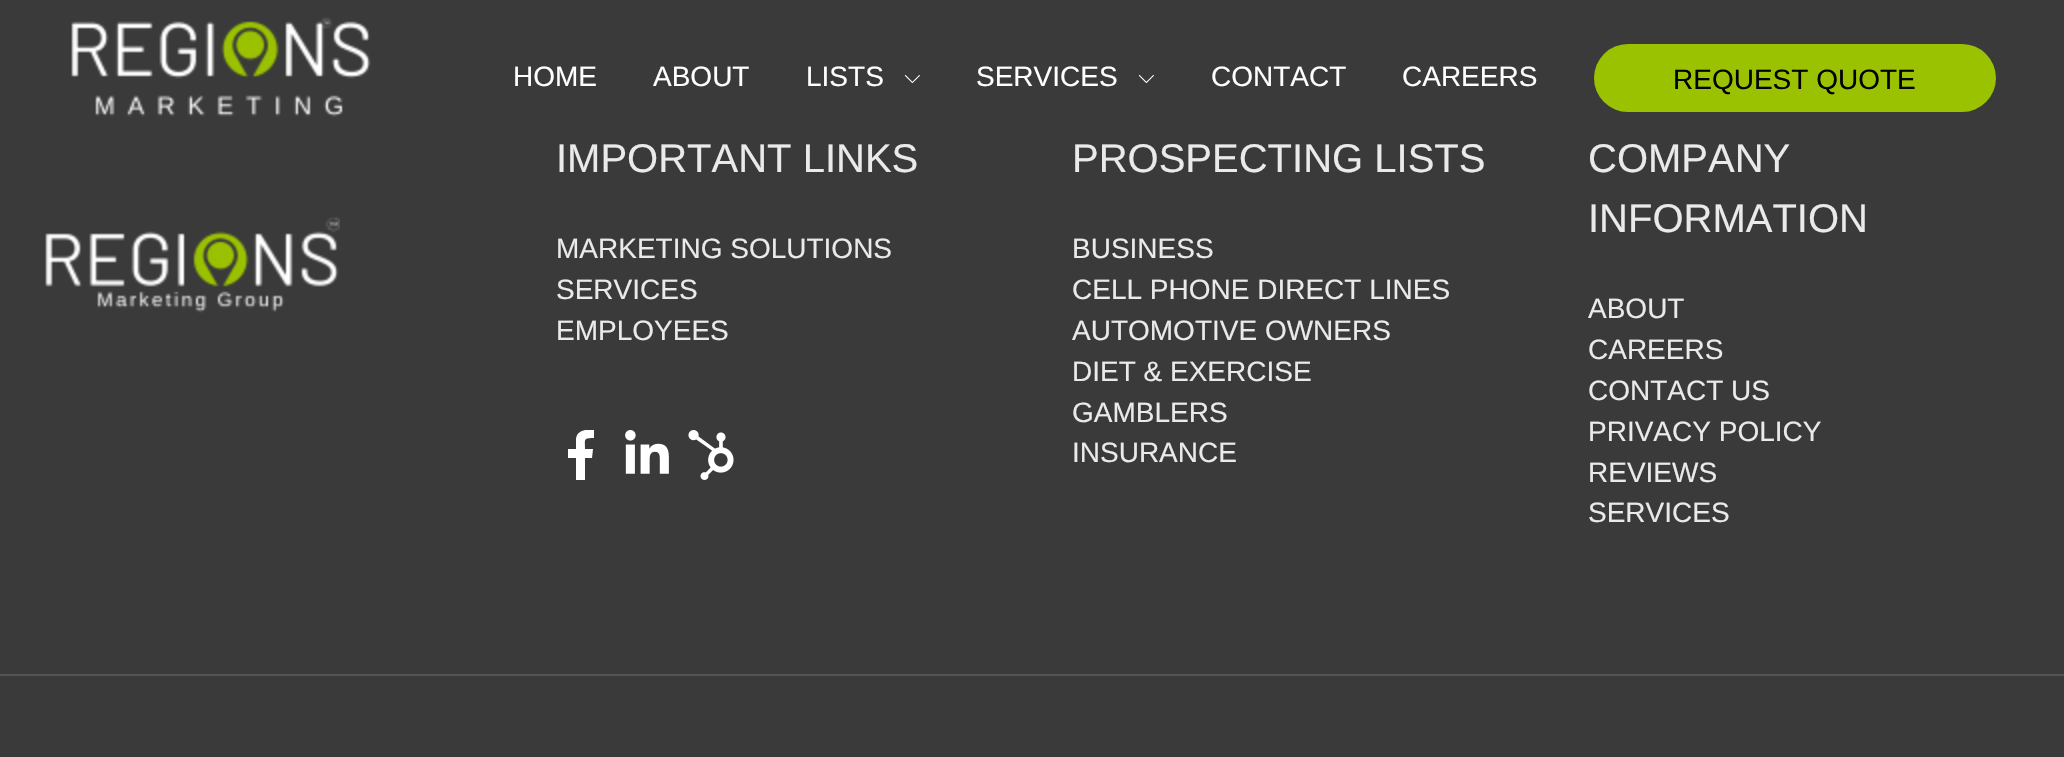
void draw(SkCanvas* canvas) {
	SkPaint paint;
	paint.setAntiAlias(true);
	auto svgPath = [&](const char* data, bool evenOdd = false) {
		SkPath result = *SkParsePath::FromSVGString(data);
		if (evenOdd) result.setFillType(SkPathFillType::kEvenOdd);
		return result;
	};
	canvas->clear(0xff3a3a3a);
	canvas->drawImageRect(SkImages::DeferredFromEncodedData(SkData::MakeFromFileName("img1.png")), SkRect::MakeXYWH(71, 17, 300, 100), SkSamplingOptions());
	SkFont f1(fontMgr->matchFamilyStyle("Arimo", SkFontStyle::Normal()), 28);
	f1.setSubpixel(true);
	paint.setColor(0xffffffff);
	canvas->drawString("HOME", 513, 86, f1, paint);
	canvas->drawString("ABOUT", 653, 86, f1, paint);
	canvas->drawString("LISTS", 806, 86, f1, paint);
	canvas->drawImageRect(SkImages::DeferredFromEncodedData(SkData::MakeFromFileName("img2.png")), SkRect::MakeXYWH(904, 75, 16, 8), SkSamplingOptions());
	canvas->drawString("SERVICES", 976, 86, f1, paint);
	canvas->drawImageRect(SkImages::DeferredFromEncodedData(SkData::MakeFromFileName("img2.png")), SkRect::MakeXYWH(1138, 75, 16, 8), SkSamplingOptions());
	canvas->drawString("CONTACT", 1211, 86, f1, paint);
	canvas->drawString("CAREERS", 1402, 86, f1, paint);
	paint.setColor(0xff9bc200);
	canvas->drawRoundRect(SkRect::MakeXYWH(1594, 44, 402, 68), 34, 34, paint);
	paint.setColor(0xff000000);
	canvas->drawString("REQUEST QUOTE", 1673, 89, f1, paint);
	canvas->drawImageRect(SkImages::DeferredFromEncodedData(SkData::MakeFromFileName("img3.png")), SkRect::MakeXYWH(45, 217, 295, 96), SkSamplingOptions());
	SkFont f2(fontMgr->matchFamilyStyle("Arimo", SkFontStyle::Normal()), 40);
	f2.setSubpixel(true);
	paint.setColor(0xffeaeaea);
	canvas->drawString("IMPORTANT LINKS", 556, 172, f2, paint);
	canvas->drawString("MARKETING SOLUTIONS", 556, 258, f1, paint);
	canvas->drawString("SERVICES", 556, 299, f1, paint);
	canvas->drawString("EMPLOYEES", 556, 340, f1, paint);
	canvas->save();
	canvas->clipRect(SkRect::MakeXYWH(556, 430, 50, 50));
	paint.setColor(0xffffffff);
	canvas->drawPath(svgPath("M576 480V458H568V449H576V439C577 430 586 429 594 430V438C583 438 585 439 585 449H593L592 458H585V480"), paint);
	canvas->restore();
	canvas->drawImageRect(SkImages::DeferredFromEncodedData(SkData::MakeFromFileName("img4.png")), SkRect::MakeXYWH(625, 430, 44, 44), SkSamplingOptions());
	canvas->drawImageRect(SkImages::DeferredFromEncodedData(SkData::MakeFromFileName("img5.png")), SkRect::MakeXYWH(688, 430, 46, 50), SkSamplingOptions());
	paint.setColor(0xffeaeaea);
	canvas->drawString("PROSPECTING LISTS", 1072, 172, f2, paint);
	canvas->drawString("BUSINESS", 1072, 258, f1, paint);
	canvas->drawString("CELL PHONE DIRECT LINES", 1072, 299, f1, paint);
	canvas->drawString("AUTOMOTIVE OWNERS", 1072, 340, f1, paint);
	canvas->drawString("DIET & EXERCISE", 1072, 381, f1, paint);
	canvas->drawString("GAMBLERS", 1072, 422, f1, paint);
	canvas->drawString("INSURANCE", 1072, 462, f1, paint);
	canvas->drawString("COMPANY", 1588, 172, f2, paint);
	canvas->drawString("INFORMATION", 1588, 232, f2, paint);
	canvas->drawString("ABOUT", 1588, 318, f1, paint);
	canvas->drawString("CAREERS", 1588, 359, f1, paint);
	canvas->drawString("CONTACT US", 1588, 400, f1, paint);
	canvas->drawString("PRIVACY POLICY", 1588, 441, f1, paint);
	canvas->drawString("REVIEWS", 1588, 482, f1, paint);
	canvas->drawString("SERVICES", 1588, 522, f1, paint);
	paint.setColor(0xff545454);
	canvas->drawRect(SkRect::MakeXYWH(0, 674, 2064, 2), paint);
}
